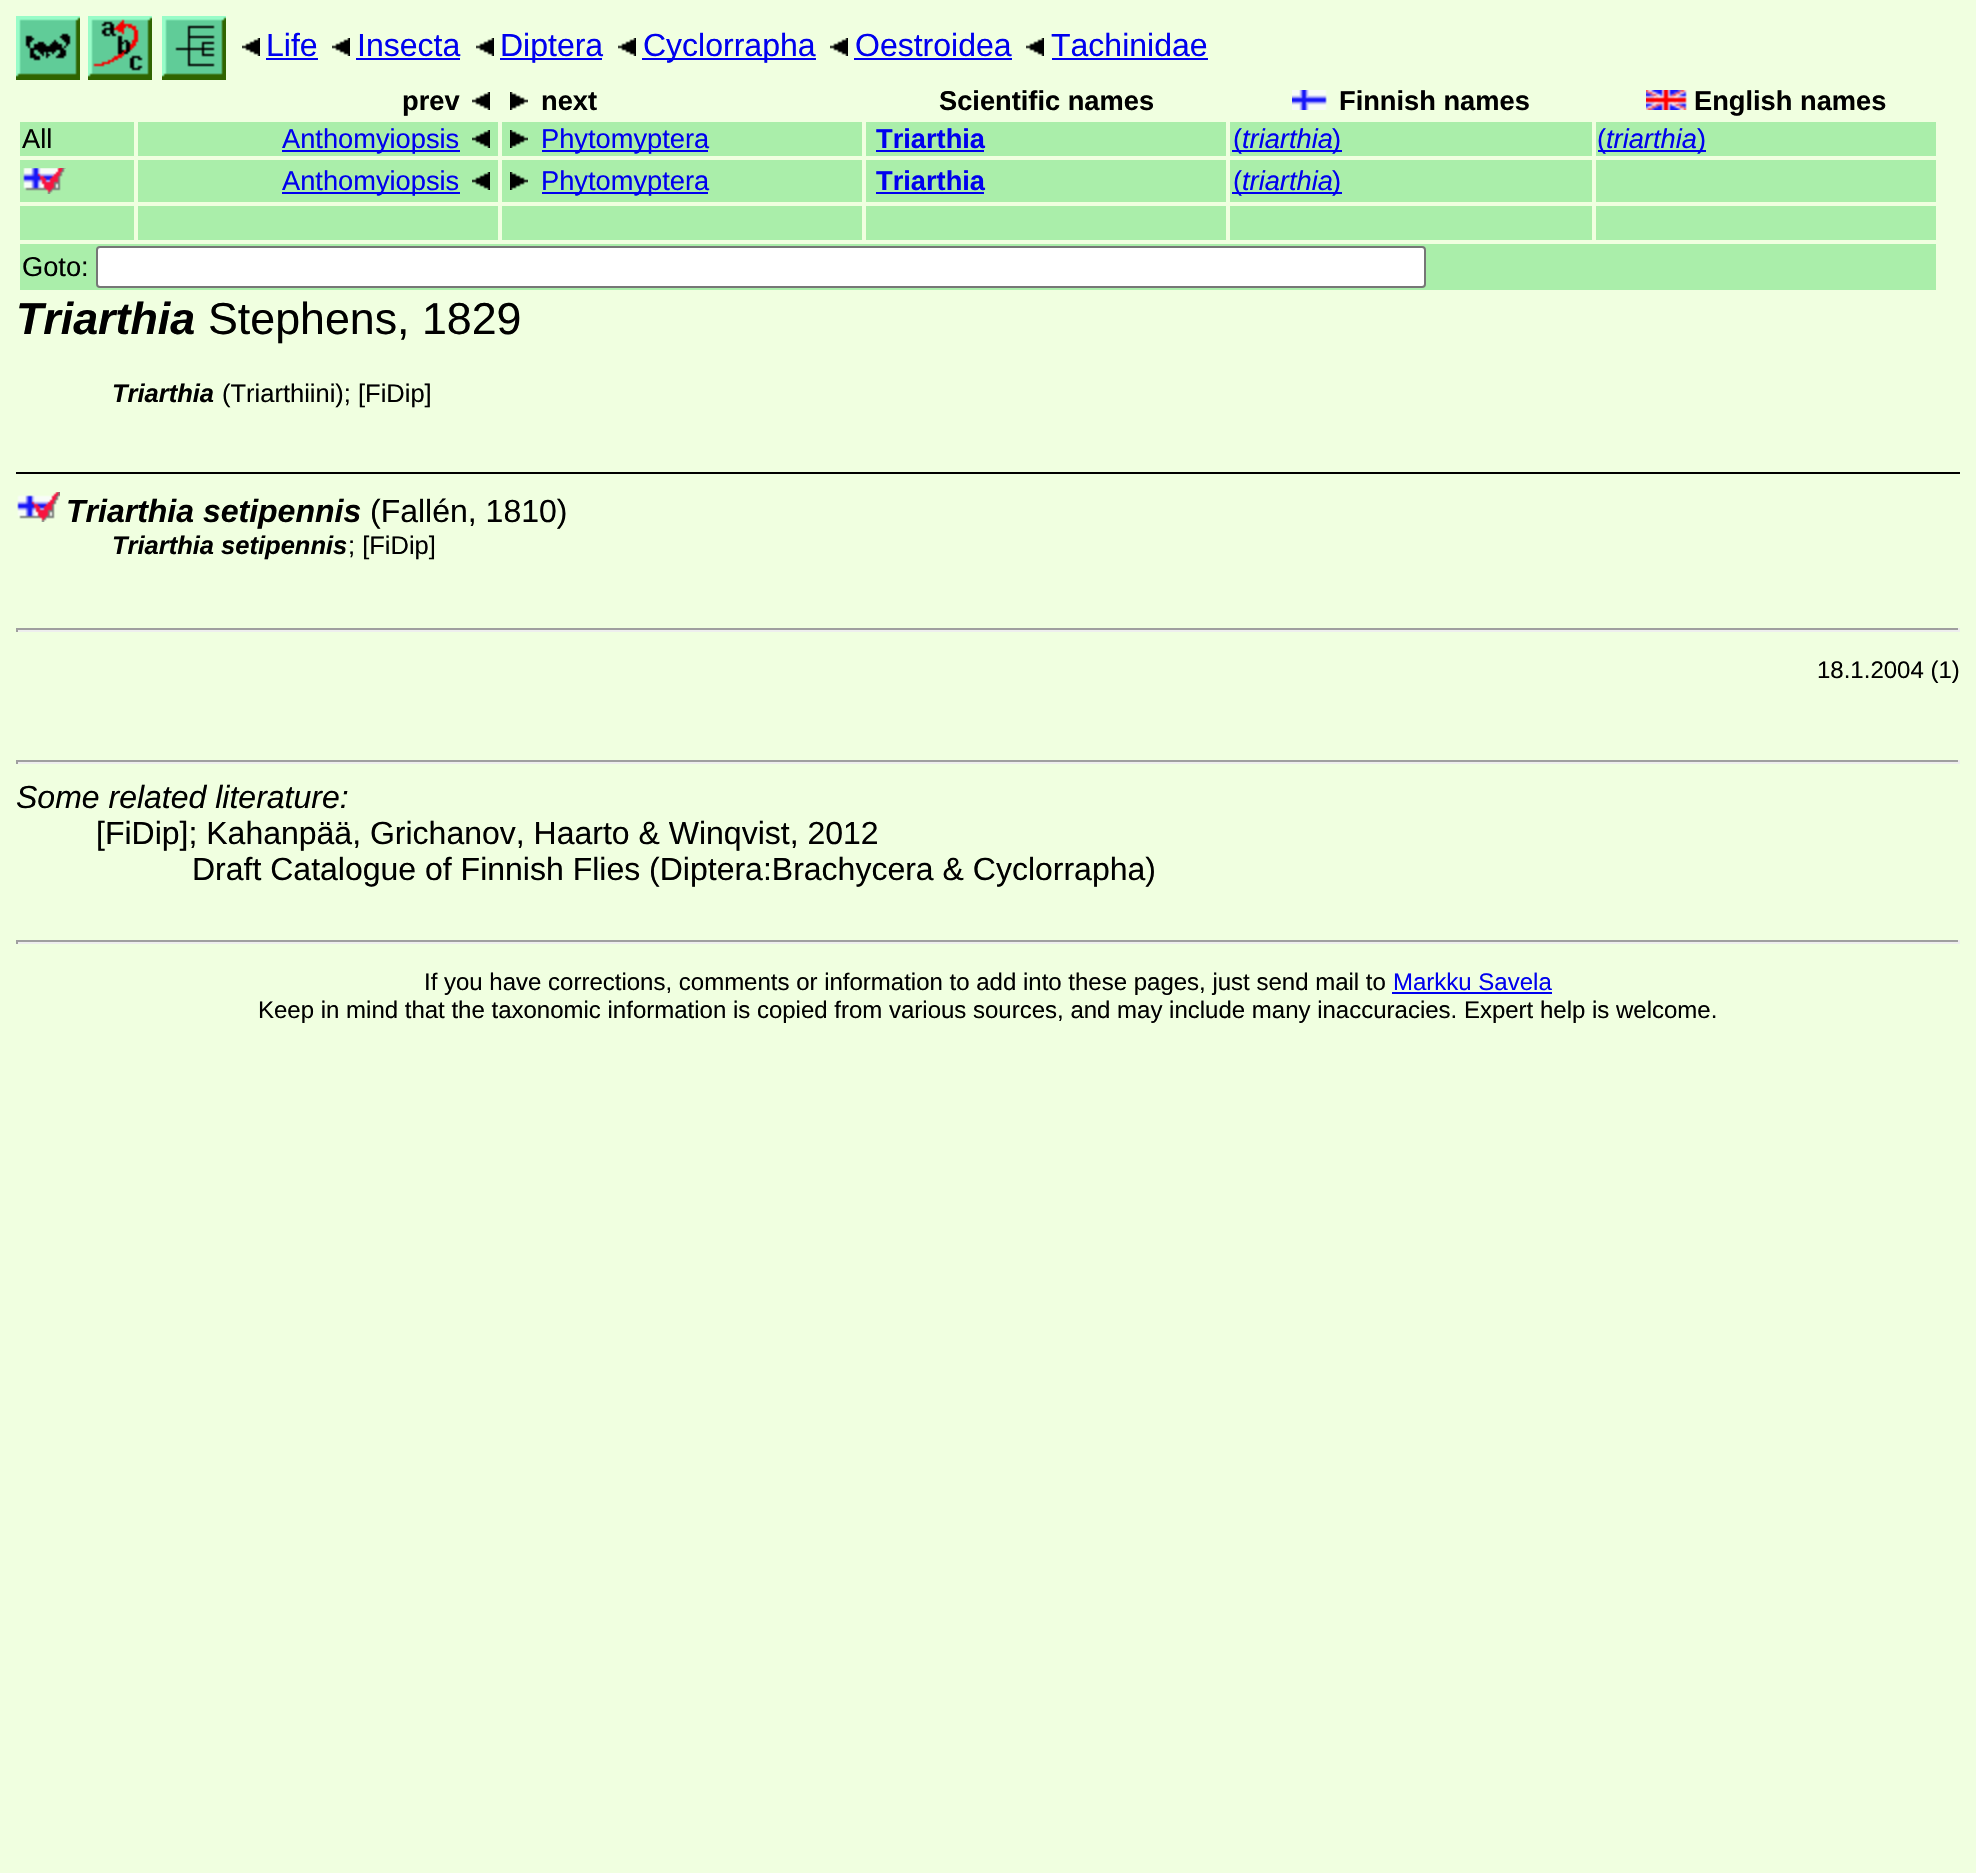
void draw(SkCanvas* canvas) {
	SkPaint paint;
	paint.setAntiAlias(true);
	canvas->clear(0xfff0ffe0);
	canvas->drawImageRect(SkImages::DeferredFromEncodedData(SkData::MakeFromFileName("img1.png")), SkRect::MakeXYWH(16, 16, 64, 64), SkSamplingOptions());
	canvas->drawImageRect(SkImages::DeferredFromEncodedData(SkData::MakeFromFileName("img2.png")), SkRect::MakeXYWH(88, 16, 64, 64), SkSamplingOptions());
	canvas->drawImageRect(SkImages::DeferredFromEncodedData(SkData::MakeFromFileName("img3.png")), SkRect::MakeXYWH(162, 16, 64, 64), SkSamplingOptions());
	canvas->drawImageRect(SkImages::DeferredFromEncodedData(SkData::MakeFromFileName("img4.png")), SkRect::MakeXYWH(242, 38, 18, 18), SkSamplingOptions());
	SkFont f1(fontMgr->matchFamilyStyle("Liberation Sans", SkFontStyle::Normal()), 32);
	f1.setSubpixel(true);
	paint.setColor(0xff0000ee);
	canvas->drawString("Life", 266, 56, f1, paint);
	canvas->drawRect(SkRect::MakeXYWH(266, 58, 52, 2), paint);
	canvas->drawImageRect(SkImages::DeferredFromEncodedData(SkData::MakeFromFileName("img4.png")), SkRect::MakeXYWH(332, 38, 18, 18), SkSamplingOptions());
	canvas->drawString("Insecta", 357, 56, f1, paint);
	canvas->drawRect(SkRect::MakeXYWH(356, 58, 104, 2), paint);
	canvas->drawImageRect(SkImages::DeferredFromEncodedData(SkData::MakeFromFileName("img4.png")), SkRect::MakeXYWH(476, 38, 18, 18), SkSamplingOptions());
	canvas->drawRect(SkRect::MakeXYWH(500, 58, 102, 2), paint);
	canvas->drawString("Diptera", 500, 56, f1, paint);
	canvas->drawImageRect(SkImages::DeferredFromEncodedData(SkData::MakeFromFileName("img4.png")), SkRect::MakeXYWH(618, 38, 18, 18), SkSamplingOptions());
	canvas->drawRect(SkRect::MakeXYWH(642, 58, 174, 2), paint);
	canvas->drawString("Cyclorrapha", 643, 56, f1, paint);
	canvas->drawImageRect(SkImages::DeferredFromEncodedData(SkData::MakeFromFileName("img4.png")), SkRect::MakeXYWH(830, 38, 18, 18), SkSamplingOptions());
	canvas->drawString("Oestroidea", 855, 56, f1, paint);
	canvas->drawRect(SkRect::MakeXYWH(854, 58, 158, 2), paint);
	canvas->drawImageRect(SkImages::DeferredFromEncodedData(SkData::MakeFromFileName("img4.png")), SkRect::MakeXYWH(1026, 38, 18, 18), SkSamplingOptions());
	canvas->drawString("Tachinidae", 1051, 56, f1, paint);
	canvas->drawRect(SkRect::MakeXYWH(1052, 58, 156, 2), paint);
	SkFont f2(fontMgr->matchFamilyStyle("Liberation Sans", SkFontStyle::Bold()), 27.25);
	f2.setSubpixel(true);
	paint.setColor(0xff000000);
	canvas->drawString("prev", 402, 110, f2, paint);
	canvas->drawImageRect(SkImages::DeferredFromEncodedData(SkData::MakeFromFileName("img4.png")), SkRect::MakeXYWH(472, 92, 18, 18), SkSamplingOptions());
	canvas->drawImageRect(SkImages::DeferredFromEncodedData(SkData::MakeFromFileName("img5.png")), SkRect::MakeXYWH(510, 92, 18, 18), SkSamplingOptions());
	canvas->drawString("next", 541, 110, f2, paint);
	canvas->drawString("Scientific names", 939, 110, f2, paint);
	canvas->drawImageRect(SkImages::DeferredFromEncodedData(SkData::MakeFromFileName("img6.png")), SkRect::MakeXYWH(1292, 90, 35, 20), SkSamplingOptions());
	canvas->drawString("Finnish names", 1339, 110, f2, paint);
	canvas->drawImageRect(SkImages::DeferredFromEncodedData(SkData::MakeFromFileName("img7.png")), SkRect::MakeXYWH(1646, 90, 41, 20), SkSamplingOptions());
	canvas->drawString("English names", 1694, 110, f2, paint);
	paint.setColor(0xffaaeeaa);
	canvas->drawRect(SkRect::MakeXYWH(20, 122, 114, 34), paint);
	SkFont f3(fontMgr->matchFamilyStyle("Liberation Sans", SkFontStyle::Normal()), 27.25);
	f3.setSubpixel(true);
	paint.setColor(0xff000000);
	canvas->drawString("All", 22, 148, f3, paint);
	paint.setColor(0xffaaeeaa);
	canvas->drawRect(SkRect::MakeXYWH(138, 122, 360, 34), paint);
	paint.setColor(0xff0000ee);
	canvas->drawRect(SkRect::MakeXYWH(282, 150, 178, 2), paint);
	canvas->drawString("Anthomyiopsis", 282, 148, f3, paint);
	canvas->drawImageRect(SkImages::DeferredFromEncodedData(SkData::MakeFromFileName("img8.png")), SkRect::MakeXYWH(472, 130, 18, 18), SkSamplingOptions());
	paint.setColor(0xffaaeeaa);
	canvas->drawRect(SkRect::MakeXYWH(502, 122, 360, 34), paint);
	canvas->drawImageRect(SkImages::DeferredFromEncodedData(SkData::MakeFromFileName("img9.png")), SkRect::MakeXYWH(510, 130, 18, 18), SkSamplingOptions());
	paint.setColor(0xff0000ee);
	canvas->drawRect(SkRect::MakeXYWH(542, 150, 166, 2), paint);
	canvas->drawString("Phytomyptera", 541, 148, f3, paint);
	paint.setColor(0xffaaeeaa);
	canvas->drawRect(SkRect::MakeXYWH(866, 122, 360, 34), paint);
	paint.setColor(0xff0000ee);
	canvas->drawString("Triarthia", 876, 148, f2, paint);
	canvas->drawRect(SkRect::MakeXYWH(876, 150, 108, 2), paint);
	paint.setColor(0xffaaeeaa);
	canvas->drawRect(SkRect::MakeXYWH(1230, 122, 362, 34), paint);
	paint.setColor(0xff0000ee);
	canvas->drawRect(SkRect::MakeXYWH(1232, 150, 110, 2), paint);
	canvas->drawString("(", 1233, 148, f3, paint);
	SkFont f4(fontMgr->matchFamilyStyle("Liberation Sans", SkFontStyle::Italic()), 27.25);
	f4.setSubpixel(true);
	canvas->drawString("triarthia", 1242, 148, f4, paint);
	canvas->drawString(")", 1332, 148, f3, paint);
	paint.setColor(0xffaaeeaa);
	canvas->drawRect(SkRect::MakeXYWH(1596, 122, 340, 34), paint);
	paint.setColor(0xff0000ee);
	canvas->drawRect(SkRect::MakeXYWH(1598, 150, 108, 2), paint);
	canvas->drawString("(", 1597, 148, f3, paint);
	canvas->drawString("triarthia", 1606, 148, f4, paint);
	canvas->drawString(")", 1697, 148, f3, paint);
	paint.setColor(0xffaaeeaa);
	canvas->drawRect(SkRect::MakeXYWH(20, 160, 114, 42), paint);
	canvas->drawImageRect(SkImages::DeferredFromEncodedData(SkData::MakeFromFileName("img10.png")), SkRect::MakeXYWH(23, 168, 43, 26), SkSamplingOptions());
	canvas->drawRect(SkRect::MakeXYWH(138, 160, 360, 42), paint);
	paint.setColor(0xff0000ee);
	canvas->drawRect(SkRect::MakeXYWH(282, 192, 178, 2), paint);
	canvas->drawString("Anthomyiopsis", 282, 190, f3, paint);
	canvas->drawImageRect(SkImages::DeferredFromEncodedData(SkData::MakeFromFileName("img8.png")), SkRect::MakeXYWH(472, 172, 18, 18), SkSamplingOptions());
	paint.setColor(0xffaaeeaa);
	canvas->drawRect(SkRect::MakeXYWH(502, 160, 360, 42), paint);
	canvas->drawImageRect(SkImages::DeferredFromEncodedData(SkData::MakeFromFileName("img9.png")), SkRect::MakeXYWH(510, 172, 18, 18), SkSamplingOptions());
	paint.setColor(0xff0000ee);
	canvas->drawRect(SkRect::MakeXYWH(542, 192, 166, 2), paint);
	canvas->drawString("Phytomyptera", 541, 190, f3, paint);
	paint.setColor(0xffaaeeaa);
	canvas->drawRect(SkRect::MakeXYWH(866, 160, 360, 42), paint);
	paint.setColor(0xff0000ee);
	canvas->drawString("Triarthia", 876, 190, f2, paint);
	canvas->drawRect(SkRect::MakeXYWH(876, 192, 108, 2), paint);
	paint.setColor(0xffaaeeaa);
	canvas->drawRect(SkRect::MakeXYWH(1230, 160, 362, 42), paint);
	paint.setColor(0xff0000ee);
	canvas->drawRect(SkRect::MakeXYWH(1232, 192, 110, 2), paint);
	canvas->drawString("(", 1233, 190, f3, paint);
	canvas->drawString("triarthia", 1242, 190, f4, paint);
	canvas->drawString(")", 1332, 190, f3, paint);
	paint.setColor(0xffaaeeaa);
	canvas->drawRect(SkRect::MakeXYWH(1596, 160, 340, 42), paint);
	canvas->drawRect(SkRect::MakeXYWH(20, 206, 114, 34), paint);
	canvas->drawRect(SkRect::MakeXYWH(138, 206, 360, 34), paint);
	canvas->drawRect(SkRect::MakeXYWH(502, 206, 360, 34), paint);
	canvas->drawRect(SkRect::MakeXYWH(866, 206, 360, 34), paint);
	canvas->drawRect(SkRect::MakeXYWH(1230, 206, 362, 34), paint);
	canvas->drawRect(SkRect::MakeXYWH(1596, 206, 340, 34), paint);
	canvas->drawRect(SkRect::MakeXYWH(20, 244, 1916, 46), paint);
	paint.setColor(0xff000000);
	canvas->drawString("Goto:", 22, 276, f3, paint);
	paint.setColor(0xffffffff);
	canvas->drawRoundRect(SkRect::MakeXYWH(97, 247, 1328, 40), 3, 3, paint);
	paint.setStroke(true);
	paint.setStrokeWidth(2);
	paint.setColor(0xff767676);
	canvas->drawRoundRect(SkRect::MakeXYWH(97, 247, 1328, 40), 3, 3, paint);
	SkFont f5(fontMgr->matchFamilyStyle("Liberation Sans", SkFontStyle::BoldItalic()), 44.75);
	f5.setSubpixel(true);
	paint.setStroke(false);
	paint.setColor(0xff000000);
	canvas->drawString("Triarthia", 16, 334, f5, paint);
	SkFont f6(fontMgr->matchFamilyStyle("Liberation Sans", SkFontStyle::Normal()), 44.75);
	f6.setSubpixel(true);
	canvas->drawString("Stephens, 1829", 208, 334, f6, paint);
	SkFont f7(fontMgr->matchFamilyStyle("Liberation Sans", SkFontStyle::BoldItalic()), 25.5);
	f7.setSubpixel(true);
	canvas->drawString("Triarthia", 112, 402, f7, paint);
	SkFont f8(fontMgr->matchFamilyStyle("Liberation Sans", SkFontStyle::Normal()), 25.5);
	f8.setSubpixel(true);
	canvas->drawString("(Triarthiini); [FiDip]", 222, 402, f8, paint);
	canvas->drawRect(SkRect::MakeXYWH(16, 472, 1944, 2), paint);
	canvas->drawImageRect(SkImages::DeferredFromEncodedData(SkData::MakeFromFileName("img11.png")), SkRect::MakeXYWH(17, 492, 43, 30), SkSamplingOptions());
	SkFont f9(fontMgr->matchFamilyStyle("Liberation Sans", SkFontStyle::BoldItalic()), 32);
	f9.setSubpixel(true);
	canvas->drawString("Triarthia setipennis", 66, 522, f9, paint);
	canvas->drawString("(Fallén, 1810)", 370, 522, f1, paint);
	canvas->drawString("Triarthia setipennis", 112, 554, f7, paint);
	canvas->drawString("; [FiDip]", 348, 554, f8, paint);
	paint.setColor(0xff9f9f9f);
	canvas->drawRect(SkRect::MakeXYWH(16, 628, 1944, 2), paint);
	paint.setColor(0xffeeeeee);
	canvas->drawRect(SkRect::MakeXYWH(1958, 628, 2, 4), paint);
	canvas->drawRect(SkRect::MakeXYWH(16, 630, 1944, 2), paint);
	paint.setColor(0xff9f9f9f);
	canvas->drawRect(SkRect::MakeXYWH(16, 628, 2, 4), paint);
	SkFont f10(fontMgr->matchFamilyStyle("Liberation Sans", SkFontStyle::Normal()), 24);
	f10.setSubpixel(true);
	paint.setColor(0xff000000);
	canvas->drawString("18.1.2004 (1)", 1817, 678, f10, paint);
	paint.setColor(0xff9f9f9f);
	canvas->drawRect(SkRect::MakeXYWH(16, 760, 1944, 2), paint);
	paint.setColor(0xffeeeeee);
	canvas->drawRect(SkRect::MakeXYWH(1958, 760, 2, 4), paint);
	canvas->drawRect(SkRect::MakeXYWH(16, 762, 1944, 2), paint);
	paint.setColor(0xff9f9f9f);
	canvas->drawRect(SkRect::MakeXYWH(16, 760, 2, 4), paint);
	SkFont f11(fontMgr->matchFamilyStyle("Liberation Sans", SkFontStyle::Italic()), 32);
	f11.setSubpixel(true);
	paint.setColor(0xff000000);
	canvas->drawString("Some related literature:", 16, 808, f11, paint);
	canvas->drawString("[FiDip]; Kahanpää, Grichanov, Haarto & Winqvist, 2012", 96, 844, f1, paint);
	canvas->drawString("Draft Catalogue of Finnish Flies (Diptera:Brachycera & Cyclorrapha)", 192, 880, f1, paint);
	paint.setColor(0xff9f9f9f);
	canvas->drawRect(SkRect::MakeXYWH(16, 940, 1944, 2), paint);
	paint.setColor(0xffeeeeee);
	canvas->drawRect(SkRect::MakeXYWH(1958, 940, 2, 4), paint);
	canvas->drawRect(SkRect::MakeXYWH(16, 942, 1944, 2), paint);
	paint.setColor(0xff9f9f9f);
	canvas->drawRect(SkRect::MakeXYWH(16, 940, 2, 4), paint);
	paint.setColor(0xff000000);
	canvas->drawString("If you have corrections, comments or information to add into these pages, just send mail to", 424, 990, f10, paint);
	paint.setColor(0xff0000ee);
	canvas->drawString("Markku Savela", 1393, 990, f10, paint);
	canvas->drawRect(SkRect::MakeXYWH(1392, 992, 160, 2), paint);
	paint.setColor(0xff000000);
	canvas->drawString("Keep in mind that the taxonomic information is copied from various sources, and may include many inaccuracies. Expert help is welcome.", 258, 1018, f10, paint);
}
